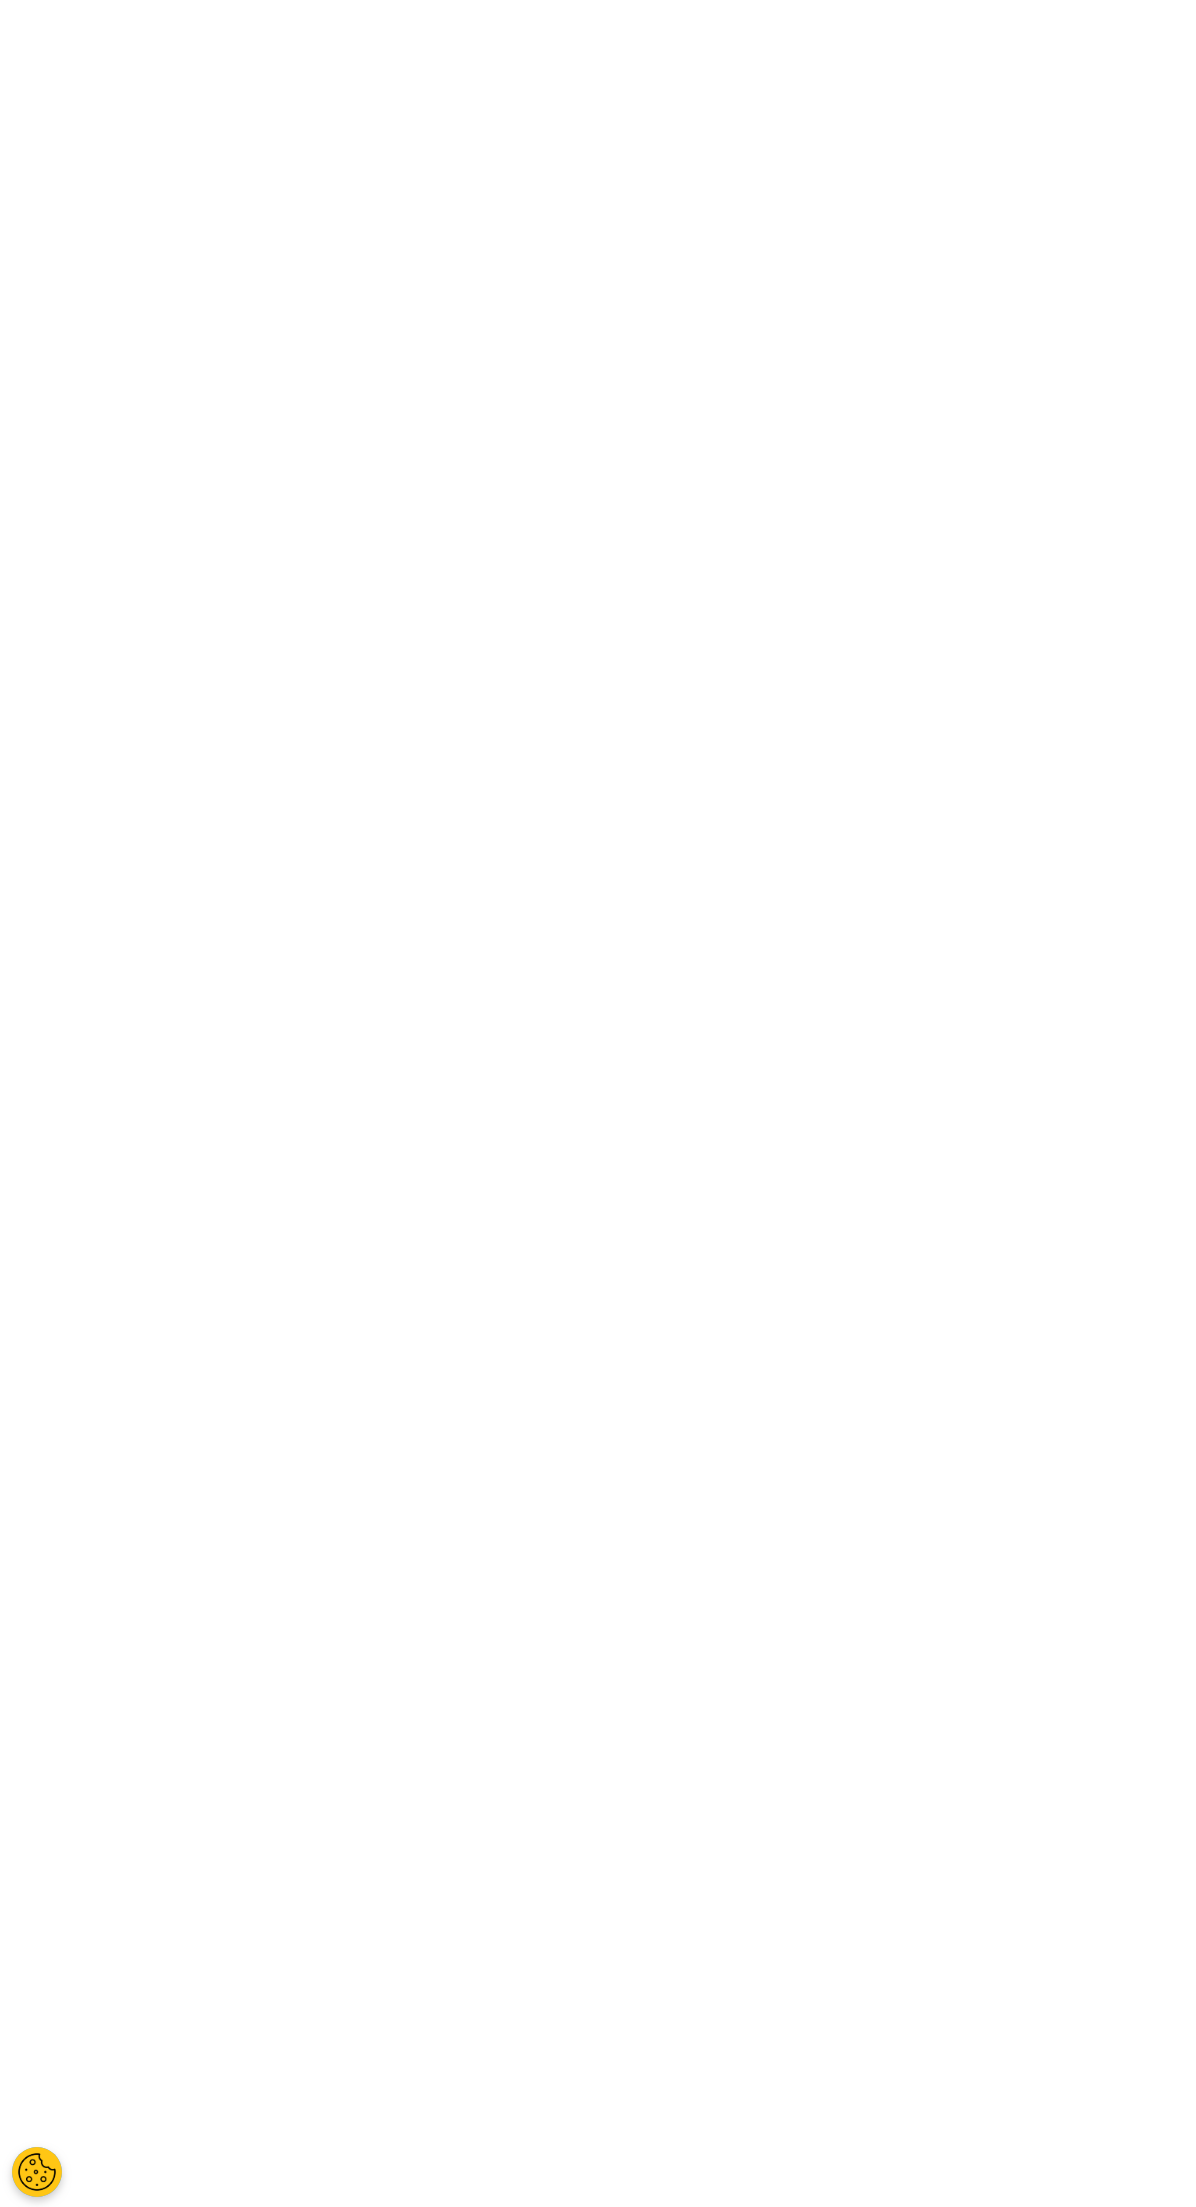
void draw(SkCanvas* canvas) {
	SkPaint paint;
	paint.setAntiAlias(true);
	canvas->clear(0xffffffff);
	paint.setColor(0x33000000);
	paint.setMaskFilter(SkMaskFilter::MakeBlur(kNormal_SkBlurStyle, 4));
	canvas->drawRoundRect(SkRect::MakeXYWH(12, 2151, 50, 50), 25, 25, paint);
	paint.setMaskFilter(nullptr);
	paint.setColor(0xff6aaae4);
	canvas->drawCircle(37, 2172, 25, paint);
	canvas->drawImageRect(SkImages::DeferredFromEncodedData(SkData::MakeFromFileName("img1.png")), SkRect::MakeXYWH(12, 2147, 50, 50), SkSamplingOptions());
}
